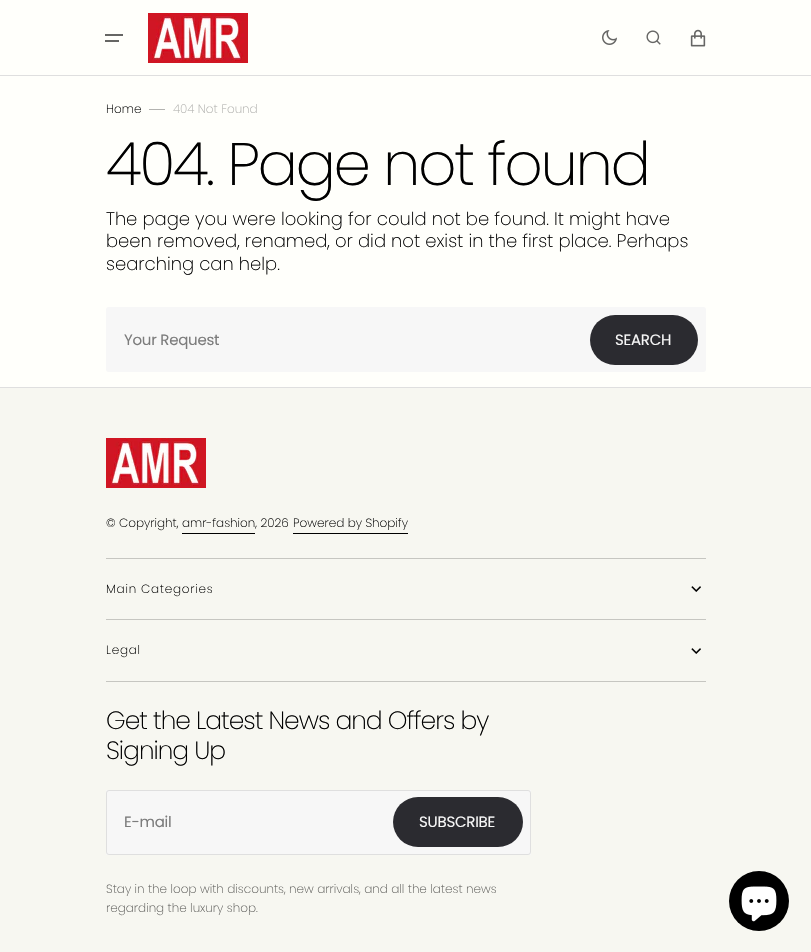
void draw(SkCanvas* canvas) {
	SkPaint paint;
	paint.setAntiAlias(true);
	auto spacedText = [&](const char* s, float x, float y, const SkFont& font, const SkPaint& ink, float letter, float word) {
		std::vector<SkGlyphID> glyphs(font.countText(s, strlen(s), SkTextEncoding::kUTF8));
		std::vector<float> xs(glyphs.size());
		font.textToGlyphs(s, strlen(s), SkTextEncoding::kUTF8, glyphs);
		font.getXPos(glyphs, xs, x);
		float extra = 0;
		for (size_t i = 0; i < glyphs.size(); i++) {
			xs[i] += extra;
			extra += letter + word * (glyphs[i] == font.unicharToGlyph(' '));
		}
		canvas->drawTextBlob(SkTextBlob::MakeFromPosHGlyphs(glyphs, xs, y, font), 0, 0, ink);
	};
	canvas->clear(0xfff7f7f1);
	paint.setColor(0xfffffffb);
	canvas->drawRect(SkRect::MakeXYWH(0, 0, 811, 387), paint);
	paint.setColor(0xffdfdfdf);
	canvas->drawRect(SkRect::MakeXYWH(0, 75, 811, 1), paint);
	paint.setColor(0xff666664);
	canvas->drawRect(SkRect::MakeXYWH(105, 34, 18, 2), paint);
	canvas->drawRect(SkRect::MakeXYWH(105, 40, 14, 2), paint);
	canvas->drawImageRect(SkImages::DeferredFromEncodedData(SkData::MakeFromFileName("img1.png")), SkRect::MakeXYWH(148, 13, 100, 50), SkSamplingOptions());
	canvas->drawImageRect(SkImages::DeferredFromEncodedData(SkData::MakeFromFileName("img2.png")), SkRect::MakeXYWH(602, 30, 15, 15), SkSamplingOptions());
	canvas->drawImageRect(SkImages::DeferredFromEncodedData(SkData::MakeFromFileName("img3.png")), SkRect::MakeXYWH(646, 30, 15, 15), SkSamplingOptions());
	canvas->drawImageRect(SkImages::DeferredFromEncodedData(SkData::MakeFromFileName("img4.png")), SkRect::MakeXYWH(690, 29, 16, 18), SkSamplingOptions());
	SkFont f1(fontMgr->matchFamilyStyle("Poppins", SkFontStyle(300, SkFontStyle::kNormal_Width, SkFontStyle::kUpright_Slant)), 12);
	f1.setSubpixel(true);
	paint.setColor(0xff000000);
	canvas->drawString("Home", 106, 113, f1, paint);
	paint.setColor(0xffb3b3b0);
	canvas->drawRect(SkRect::MakeXYWH(149, 109, 16, 1), paint);
	canvas->drawString("404 Not Found", 173, 113, f1, paint);
	SkFont f2(fontMgr->matchFamilyStyle("Poppins", SkFontStyle(300, SkFontStyle::kNormal_Width, SkFontStyle::kUpright_Slant)), 60);
	f2.setSubpixel(true);
	paint.setColor(0xff000000);
	spacedText("404. Page not found", 106, 185, f2, paint, -2.4, 0);
	SkFont f3(fontMgr->matchFamilyStyle("Poppins", SkFontStyle(300, SkFontStyle::kNormal_Width, SkFontStyle::kUpright_Slant)), 18);
	f3.setSubpixel(true);
	canvas->drawString("The page you were looking for could not be found. It might have", 106, 225, f3, paint);
	canvas->drawString("been removed, renamed, or did not exist in the first place. Perhaps", 106, 247, f3, paint);
	canvas->drawString("searching can help.", 106, 270, f3, paint);
	paint.setColor(0xfff7f7f7);
	canvas->drawRoundRect(SkRect::MakeXYWH(106, 307, 600, 65), 3, 3, paint);
	SkFont f4(fontMgr->matchFamilyStyle("Poppins", SkFontStyle::Normal()), 15);
	f4.setSubpixel(true);
	paint.setColor(0xff7c7c7c);
	spacedText("Your Request", 124, 345, f4, paint, -0.25, 0);
	paint.setColor(0xff2b2b30);
	canvas->drawRoundRect(SkRect::MakeXYWH(590, 315, 108, 50), 25, 25, paint);
	paint.setColor(0xfff7f7f7);
	spacedText("SEARCH", 615, 345, f4, paint, -0.25, 0);
	paint.setColor(0xffdfdfdf);
	canvas->drawRect(SkRect::MakeXYWH(0, 387, 811, 1), paint);
	canvas->drawImageRect(SkImages::DeferredFromEncodedData(SkData::MakeFromFileName("img1.png")), SkRect::MakeXYWH(106, 438, 100, 50), SkSamplingOptions());
	paint.setColor(0xff000000);
	canvas->drawString("© Copyright,", 106, 527, f1, paint);
	canvas->drawString("amr-fashion, 2026", 182, 527, f1, paint);
	canvas->drawRect(SkRect::MakeXYWH(182, 533, 73, 1), paint);
	canvas->drawString("Powered by Shopify", 293, 527, f1, paint);
	canvas->drawRect(SkRect::MakeXYWH(293, 533, 115, 1), paint);
	paint.setColor(0xffc6c6c1);
	canvas->drawRect(SkRect::MakeXYWH(106, 558, 600, 1), paint);
	canvas->drawRect(SkRect::MakeXYWH(106, 619, 600, 1), paint);
	paint.setColor(0xff000000);
	spacedText("Main Categories", 106, 593, f1, paint, 0.75, 0);
	canvas->drawImageRect(SkImages::DeferredFromEncodedData(SkData::MakeFromFileName("img5.png")), SkRect::MakeXYWH(691, 586, 10, 6), SkSamplingOptions());
	paint.setColor(0xffc6c6c1);
	canvas->drawRect(SkRect::MakeXYWH(106, 681, 600, 1), paint);
	paint.setColor(0xff000000);
	spacedText("Legal", 106, 654, f1, paint, 0.75, 0);
	canvas->drawImageRect(SkImages::DeferredFromEncodedData(SkData::MakeFromFileName("img5.png")), SkRect::MakeXYWH(691, 648, 10, 6), SkSamplingOptions());
	SkFont f5(fontMgr->matchFamilyStyle("Poppins", SkFontStyle(300, SkFontStyle::kNormal_Width, SkFontStyle::kUpright_Slant)), 25);
	f5.setSubpixel(true);
	spacedText("Get the Latest News and Offers by", 106, 729, f5, paint, -1, 0);
	spacedText("Signing Up", 106, 759, f5, paint, -1, 0);
	paint.setColor(0xfff7f7f7);
	canvas->drawRect(SkRect::MakeXYWH(106, 790, 425, 65), paint);
	paint.setStroke(true);
	paint.setStrokeWidth(1);
	paint.setColor(0xffdfdfdf);
	canvas->drawRoundRect(SkRect::MakeXYWH(106.5, 790.5, 424, 64), 2.5, 2.5, paint);
	paint.setStroke(false);
	paint.setColor(0xff7c7c7c);
	spacedText("E-mail", 124, 827, f4, paint, -0.25, 0);
	paint.setColor(0xff2b2b30);
	canvas->drawRoundRect(SkRect::MakeXYWH(393, 797, 130, 50), 25, 25, paint);
	paint.setColor(0xfff7f7f7);
	spacedText("SUBSCRIBE", 419, 827, f4, paint, -0.25, 0);
	paint.setColor(0xff636360);
	canvas->drawString("Stay in the loop with discounts, new arrivals, and all the latest news", 106, 893, f1, paint);
	canvas->drawString("regarding the luxury shop.", 106, 912, f1, paint);
	paint.setColor(0xff000000);
	canvas->drawCircle(759, 901, 30, paint);
	canvas->drawImageRect(SkImages::DeferredFromEncodedData(SkData::MakeFromFileName("img6.png")), SkRect::MakeXYWH(741, 886, 36, 36), SkSamplingOptions());
}
